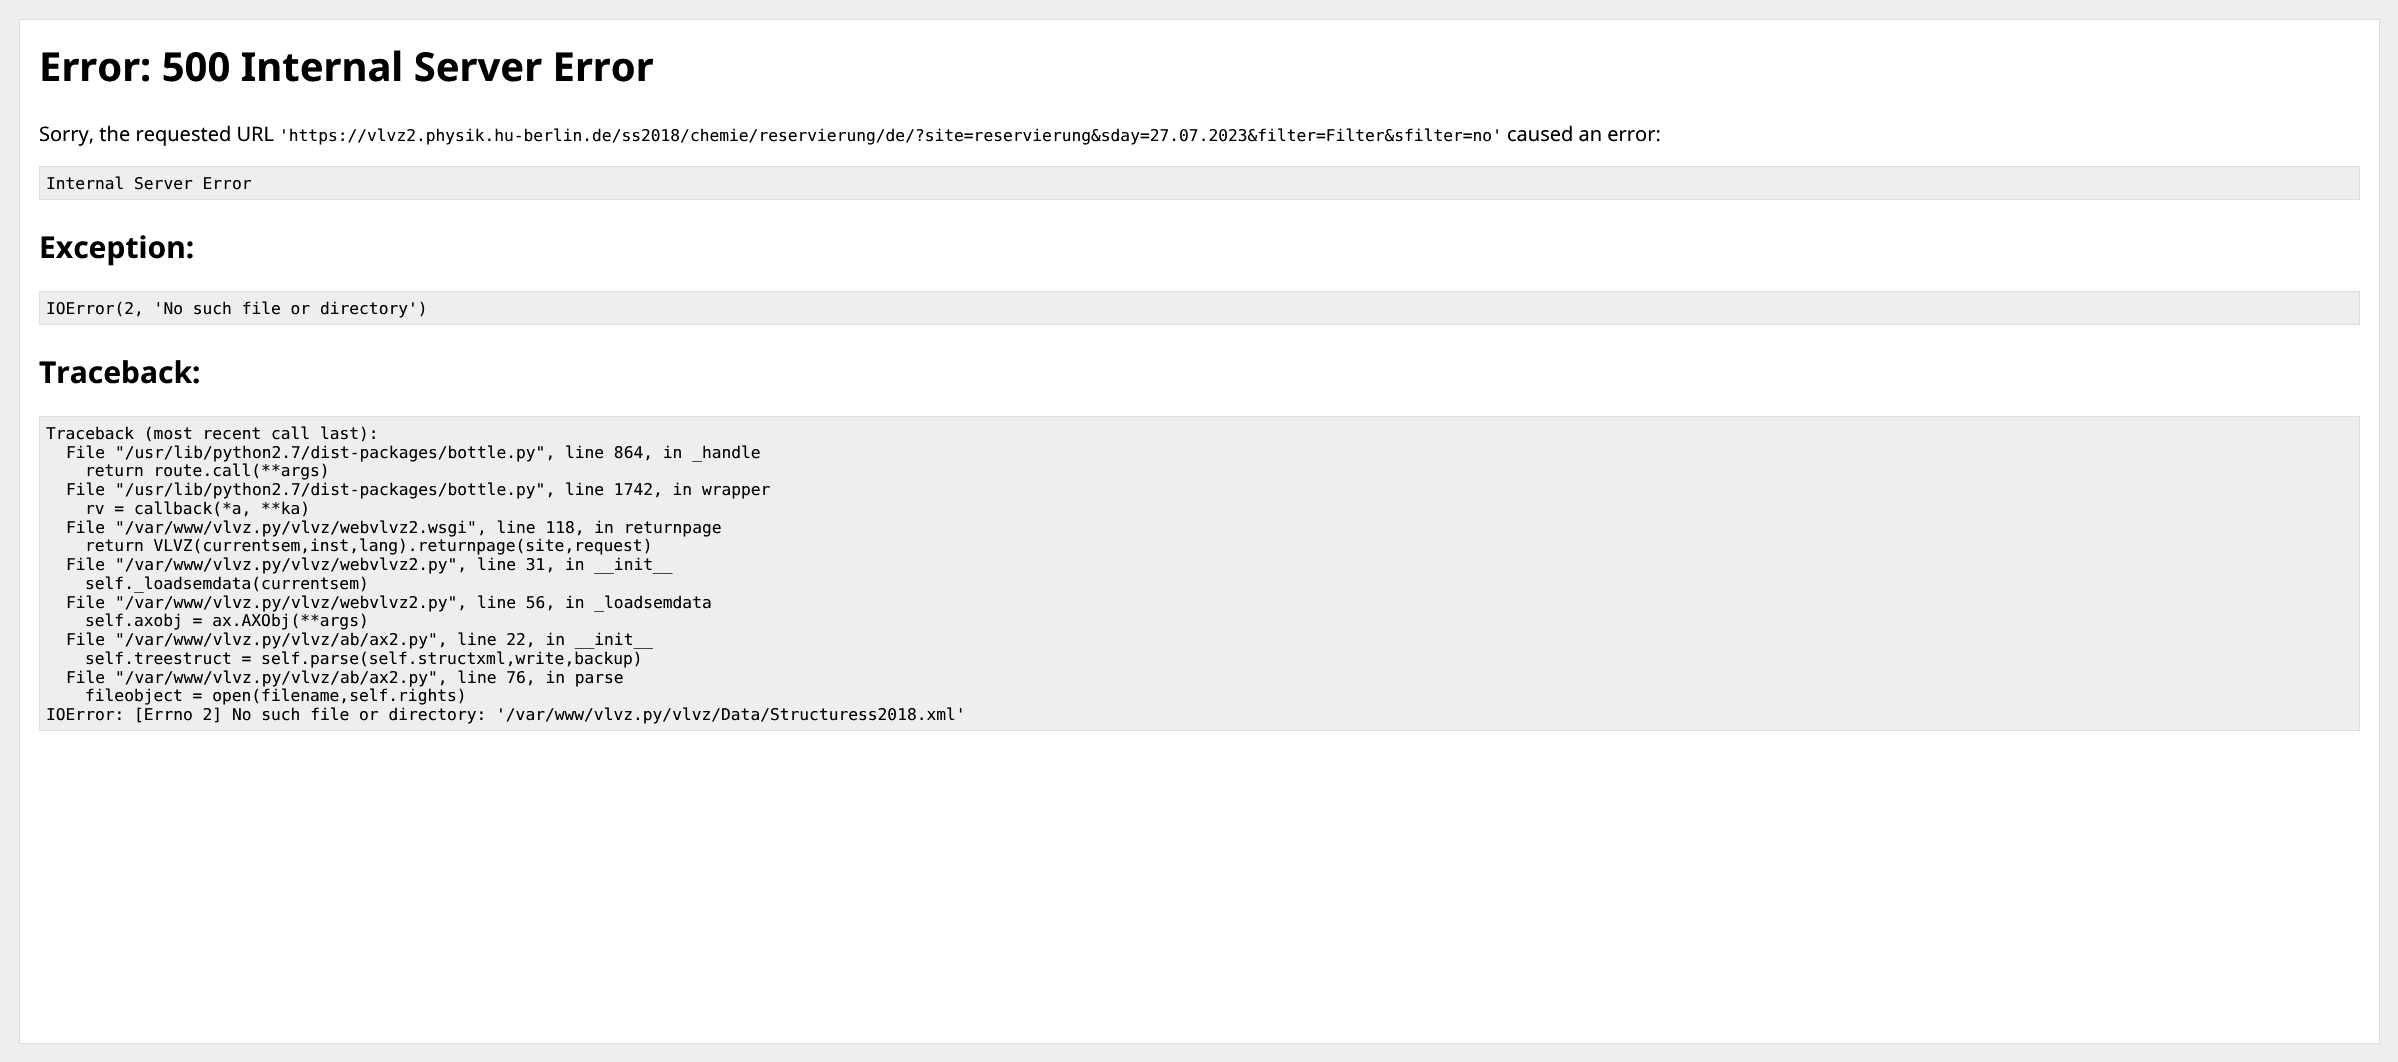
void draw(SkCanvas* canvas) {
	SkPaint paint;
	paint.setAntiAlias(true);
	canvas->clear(0xffeeeeee);
	paint.setColor(0xffffffff);
	canvas->drawRect(SkRect::MakeXYWH(19.5, 19.5, 2360, 1024), paint);
	paint.setStroke(true);
	paint.setStrokeWidth(1);
	paint.setColor(0xffdddddd);
	canvas->drawRect(SkRect::MakeXYWH(19.5, 19.5, 2360, 1024), paint);
	SkFont f1(fontMgr->matchFamilyStyle("Noto Sans", SkFontStyle::Bold()), 40);
	f1.setSubpixel(true);
	paint.setStroke(false);
	paint.setColor(0xff000000);
	canvas->drawString("Error: 500 Internal Server Error", 39, 81, f1, paint);
	SkFont f2(fontMgr->matchFamilyStyle("Noto Sans", SkFontStyle::Normal()), 20);
	f2.setSubpixel(true);
	canvas->drawString("Sorry, the requested URL", 39, 141, f2, paint);
	SkFont f3(fontMgr->matchFamilyStyle("DejaVu Sans Mono", SkFontStyle::Normal()), 16.25);
	f3.setSubpixel(true);
	canvas->drawString("'https://vlvz2.physik.hu-berlin.de/ss2018/chemie/reservierung/de/?site=reservierung&sday=27.07.2023&filter=Filter&sfilter=no'", 279, 141, f3, paint);
	canvas->drawString("caused an error:", 1507, 141, f2, paint);
	paint.setColor(0xffeeeeee);
	canvas->drawRect(SkRect::MakeXYWH(39.5, 166.5, 2320, 33), paint);
	paint.setStroke(true);
	paint.setColor(0xffdddddd);
	canvas->drawRect(SkRect::MakeXYWH(39.5, 166.5, 2320, 33), paint);
	paint.setStroke(false);
	paint.setColor(0xff000000);
	canvas->drawString("Internal Server Error", 46, 189, f3, paint);
	SkFont f4(fontMgr->matchFamilyStyle("Noto Sans", SkFontStyle::Bold()), 30);
	f4.setSubpixel(true);
	canvas->drawString("Exception:", 39, 258, f4, paint);
	paint.setColor(0xffeeeeee);
	canvas->drawRect(SkRect::MakeXYWH(39.5, 291.5, 2320, 33), paint);
	paint.setStroke(true);
	paint.setColor(0xffdddddd);
	canvas->drawRect(SkRect::MakeXYWH(39.5, 291.5, 2320, 33), paint);
	paint.setStroke(false);
	paint.setColor(0xff000000);
	canvas->drawString("IOError(2, 'No such file or directory')", 46, 314, f3, paint);
	canvas->drawString("Traceback:", 39, 383, f4, paint);
	paint.setColor(0xffeeeeee);
	canvas->drawRect(SkRect::MakeXYWH(39.5, 416.5, 2320, 314), paint);
	paint.setStroke(true);
	paint.setColor(0xffdddddd);
	canvas->drawRect(SkRect::MakeXYWH(39.5, 416.5, 2320, 314), paint);
	paint.setStroke(false);
	paint.setColor(0xff000000);
	canvas->drawString("Traceback (most recent call last):", 46, 439, f3, paint);
	canvas->drawString("File \"/usr/lib/python2.7/dist-packages/bottle.py\", line 864, in _handle", 66, 458, f3, paint);
	canvas->drawString("return route.call(**args)", 85, 476, f3, paint);
	canvas->drawString("File \"/usr/lib/python2.7/dist-packages/bottle.py\", line 1742, in wrapper", 66, 495, f3, paint);
	canvas->drawString("rv = callback(*a, **ka)", 85, 514, f3, paint);
	canvas->drawString("File \"/var/www/vlvz.py/vlvz/webvlvz2.wsgi\", line 118, in returnpage", 66, 533, f3, paint);
	canvas->drawString("return VLVZ(currentsem,inst,lang).returnpage(site,request)", 85, 551, f3, paint);
	canvas->drawString("File \"/var/www/vlvz.py/vlvz/webvlvz2.py\", line 31, in __init__", 66, 570, f3, paint);
	canvas->drawString("self._loadsemdata(currentsem)", 85, 589, f3, paint);
	canvas->drawString("File \"/var/www/vlvz.py/vlvz/webvlvz2.py\", line 56, in _loadsemdata", 66, 608, f3, paint);
	canvas->drawString("self.axobj = ax.AXObj(**args)", 85, 626, f3, paint);
	canvas->drawString("File \"/var/www/vlvz.py/vlvz/ab/ax2.py\", line 22, in __init__", 66, 645, f3, paint);
	canvas->drawString("self.treestruct = self.parse(self.structxml,write,backup)", 85, 664, f3, paint);
	canvas->drawString("File \"/var/www/vlvz.py/vlvz/ab/ax2.py\", line 76, in parse", 66, 683, f3, paint);
	canvas->drawString("fileobject = open(filename,self.rights)", 85, 701, f3, paint);
	canvas->drawString("IOError: [Errno 2] No such file or directory: '/var/www/vlvz.py/vlvz/Data/Structuress2018.xml'", 46, 720, f3, paint);
}
